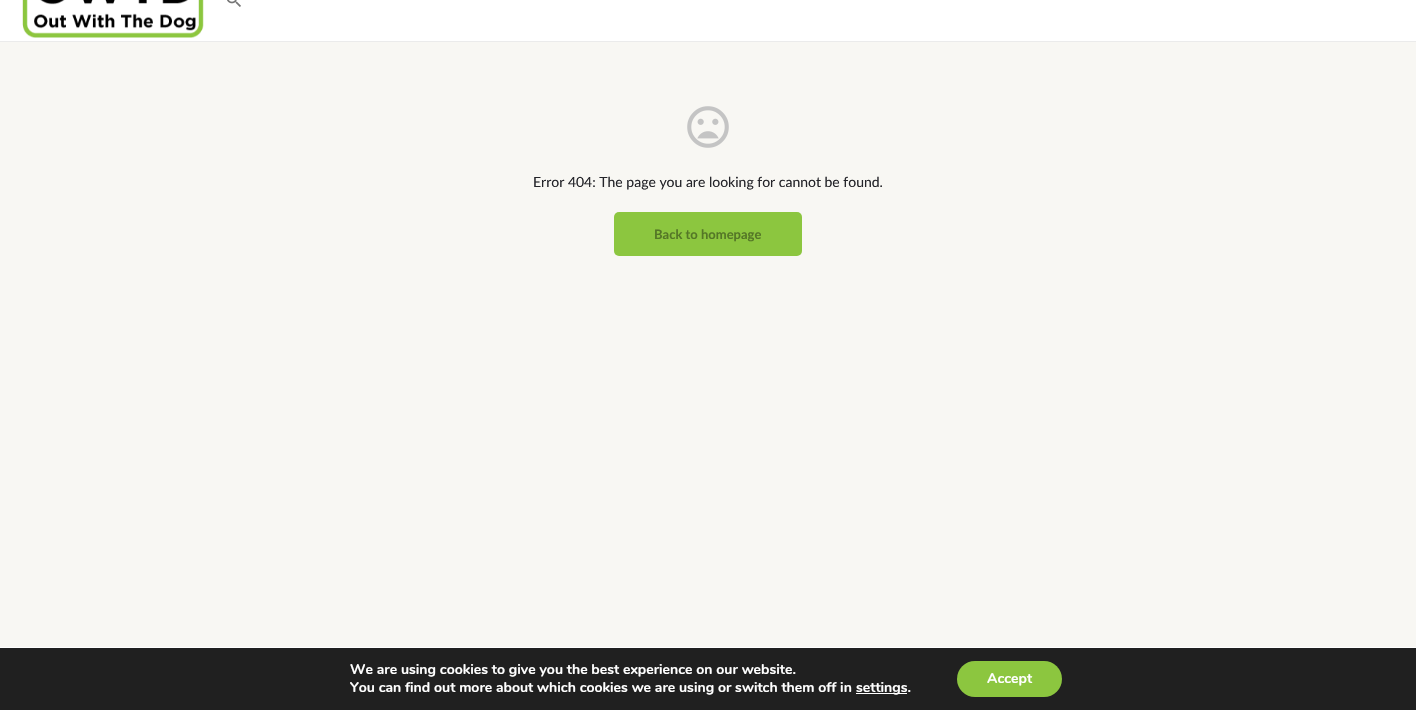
void draw(SkCanvas* canvas) {
	SkPaint paint;
	paint.setAntiAlias(true);
	canvas->clear(0xfff8f7f3);
	paint.setColor(0xffffffff);
	canvas->drawRect(SkRect::MakeXYWH(0, 0, 1416, 41), paint);
	paint.setColor(0xffebebeb);
	canvas->drawRect(SkRect::MakeXYWH(0, 41, 1416, 1), paint);
	canvas->drawImageRect(SkImages::DeferredFromEncodedData(SkData::MakeFromFileName("img1.png")), SkRect::MakeXYWH(22, 0, 182, 38), SkSamplingOptions());
	canvas->drawImageRect(SkImages::DeferredFromEncodedData(SkData::MakeFromFileName("img2.png")), SkRect::MakeXYWH(227, 0, 14, 7), SkSamplingOptions());
	canvas->drawImageRect(SkImages::DeferredFromEncodedData(SkData::MakeFromFileName("img3.png")), SkRect::MakeXYWH(687, 106, 42, 42), SkSamplingOptions());
	SkFont f1(fontMgr->matchFamilyStyle("Lato", SkFontStyle::Normal()), 14);
	f1.setSubpixel(true);
	paint.setColor(0xff242429);
	canvas->drawString("Error 404: The page you are looking for cannot be found.", 533, 187, f1, paint);
	paint.setColor(0xff8cc63f);
	canvas->drawRoundRect(SkRect::MakeXYWH(614, 212, 188, 44), 5, 5, paint);
	SkFont f2(fontMgr->matchFamilyStyle("Lato", SkFontStyle::Bold()), 13);
	f2.setSubpixel(true);
	paint.setColor(0xff547726);
	canvas->drawString("Back to homepage", 654, 239, f2, paint);
	paint.setColor(0xff202020);
	canvas->drawRect(SkRect::MakeXYWH(0, 648, 1416, 62), paint);
	paint.setColor(0xffffffff);
	canvas->drawRect(SkRect::MakeXYWH(0, 647, 1416, 1), paint);
	SkFont f3(fontMgr->matchFamilyStyle("Nunito", SkFontStyle::Bold()), 14);
	f3.setSubpixel(true);
	canvas->drawString("We are using cookies to give you the best experience on our website.", 350, 674, f3, paint);
	canvas->drawString("You can find out more about which cookies we are using or switch them off in", 350, 692, f3, paint);
	canvas->drawRect(SkRect::MakeXYWH(856, 693, 51, 1), paint);
	canvas->drawString("settings.", 856, 692, f3, paint);
	paint.setColor(0xff8cc63f);
	canvas->drawRoundRect(SkRect::MakeXYWH(957, 661, 105, 36), 18, 18, paint);
	paint.setColor(0xffffffff);
	canvas->drawString("Accept", 987, 683, f3, paint);
}
